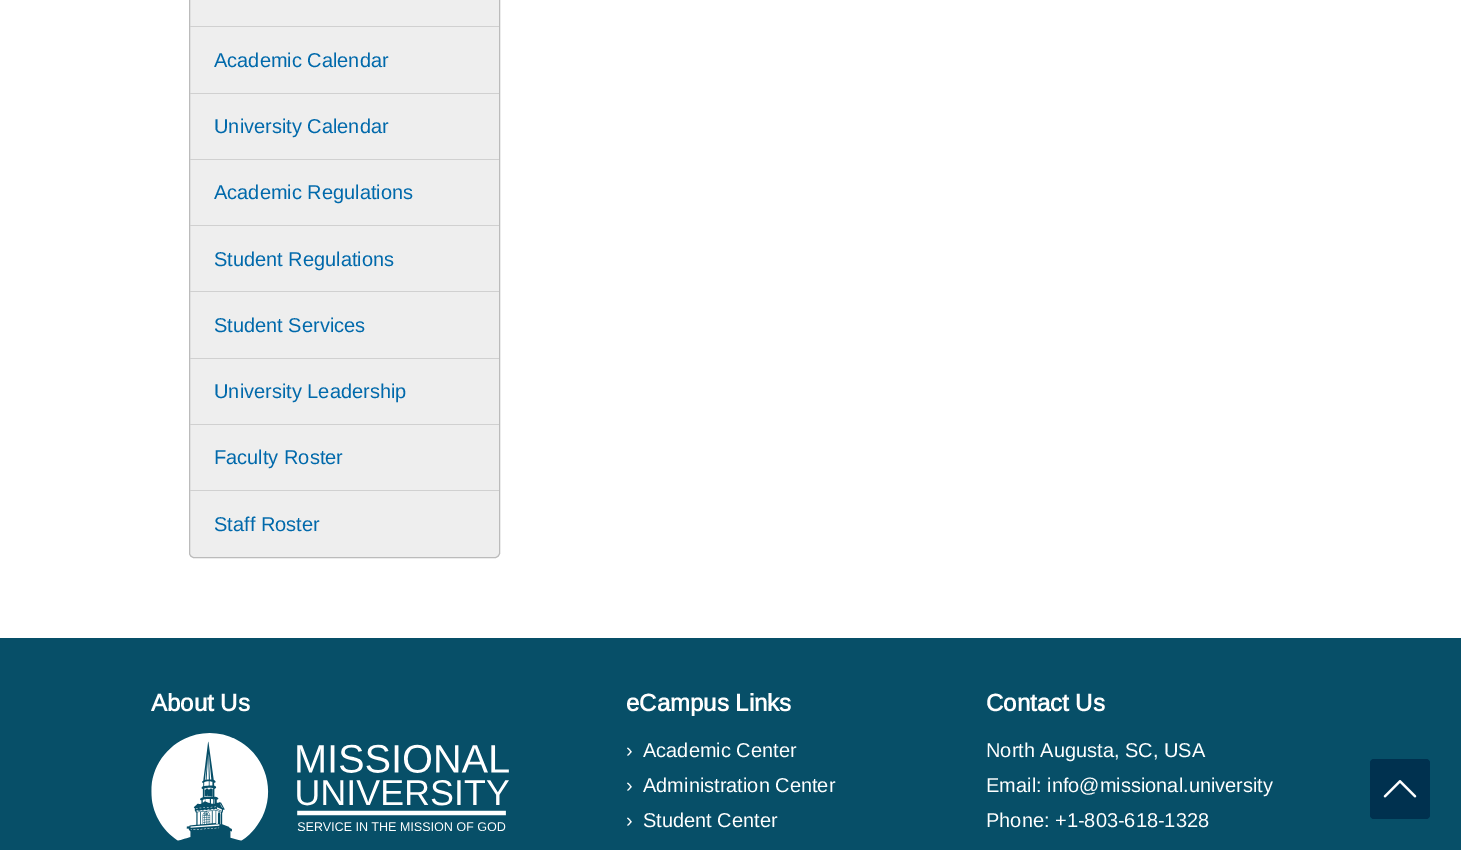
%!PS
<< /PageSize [1461 850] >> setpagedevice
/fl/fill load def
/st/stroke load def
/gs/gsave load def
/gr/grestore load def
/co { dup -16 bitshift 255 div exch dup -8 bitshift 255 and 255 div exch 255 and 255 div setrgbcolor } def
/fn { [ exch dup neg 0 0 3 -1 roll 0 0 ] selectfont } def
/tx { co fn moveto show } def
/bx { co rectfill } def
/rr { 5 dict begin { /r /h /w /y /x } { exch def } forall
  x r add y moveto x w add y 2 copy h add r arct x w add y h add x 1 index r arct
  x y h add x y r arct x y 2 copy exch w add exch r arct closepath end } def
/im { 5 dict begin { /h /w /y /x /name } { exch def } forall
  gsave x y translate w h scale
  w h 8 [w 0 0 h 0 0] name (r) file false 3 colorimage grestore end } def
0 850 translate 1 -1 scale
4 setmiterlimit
0 0 1461 850 16#074F68 bx
0 0 1461 638 16#FFFFFF bx
16#EEEEEE co
189.5 -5.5 310 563 4.5 rr gs fl gr
16#BBBBBB co
st
190 26 309 1 16#D0D0D0 bx
190 93 309 1 16#D0D0D0 bx
190 159 309 1 16#D0D0D0 bx
190 225 309 1 16#D0D0D0 bx
190 291 309 1 16#D0D0D0 bx
190 358 309 1 16#D0D0D0 bx
190 424 309 1 16#D0D0D0 bx
190 490 309 1 16#D0D0D0 bx
(media/1.raw) 151 733 358 108 im
16#00314F co
1370 759 60 60 4 rr fl
(media/2.raw) 1383 780 34 18 im
(Academic Calendar) 214 67 /LiberationSans-Regular 20 16#0069AB tx
(University Calendar) 214 133 /LiberationSans-Regular 20 16#0069AB tx
(Academic Regulations) 214 199 /LiberationSans-Regular 20 16#0069AB tx
(Student Regulations) 214 266 /LiberationSans-Regular 20 16#0069AB tx
(Student Services) 214 332 /LiberationSans-Regular 20 16#0069AB tx
(University Leadership) 214 398 /LiberationSans-Regular 20 16#0069AB tx
(Faculty Roster) 214 464 /LiberationSans-Regular 20 16#0069AB tx
(Staff Roster) 214 531 /LiberationSans-Regular 20 16#0069AB tx
(About Us) 151 711 /LiberationSans-Bold 24 16#FFFFFF tx
(eCampus Links) 626 711 /LiberationSans-Bold 24 16#FFFFFF tx
(›) 626 757 /LiberationSans-Regular 20 16#FFFFFF tx
(Academic Center) 643 757 /LiberationSans-Regular 20 16#FFFFFF tx
(›) 626 792 /LiberationSans-Regular 20 16#FFFFFF tx
(Administration Center) 643 792 /LiberationSans-Regular 20 16#FFFFFF tx
(›) 626 827 /LiberationSans-Regular 20 16#FFFFFF tx
(Student Center) 643 827 /LiberationSans-Regular 20 16#FFFFFF tx
(Contact Us) 986 711 /LiberationSans-Bold 24 16#FFFFFF tx
(North Augusta, SC, USA) 986 757 /LiberationSans-Regular 20 16#FFFFFF tx
(Email: info@missional.university) 986 792 /LiberationSans-Regular 20 16#FFFFFF tx
(Phone: +1-803-618-1328) 986 827 /LiberationSans-Regular 20 16#FFFFFF tx
showpage
